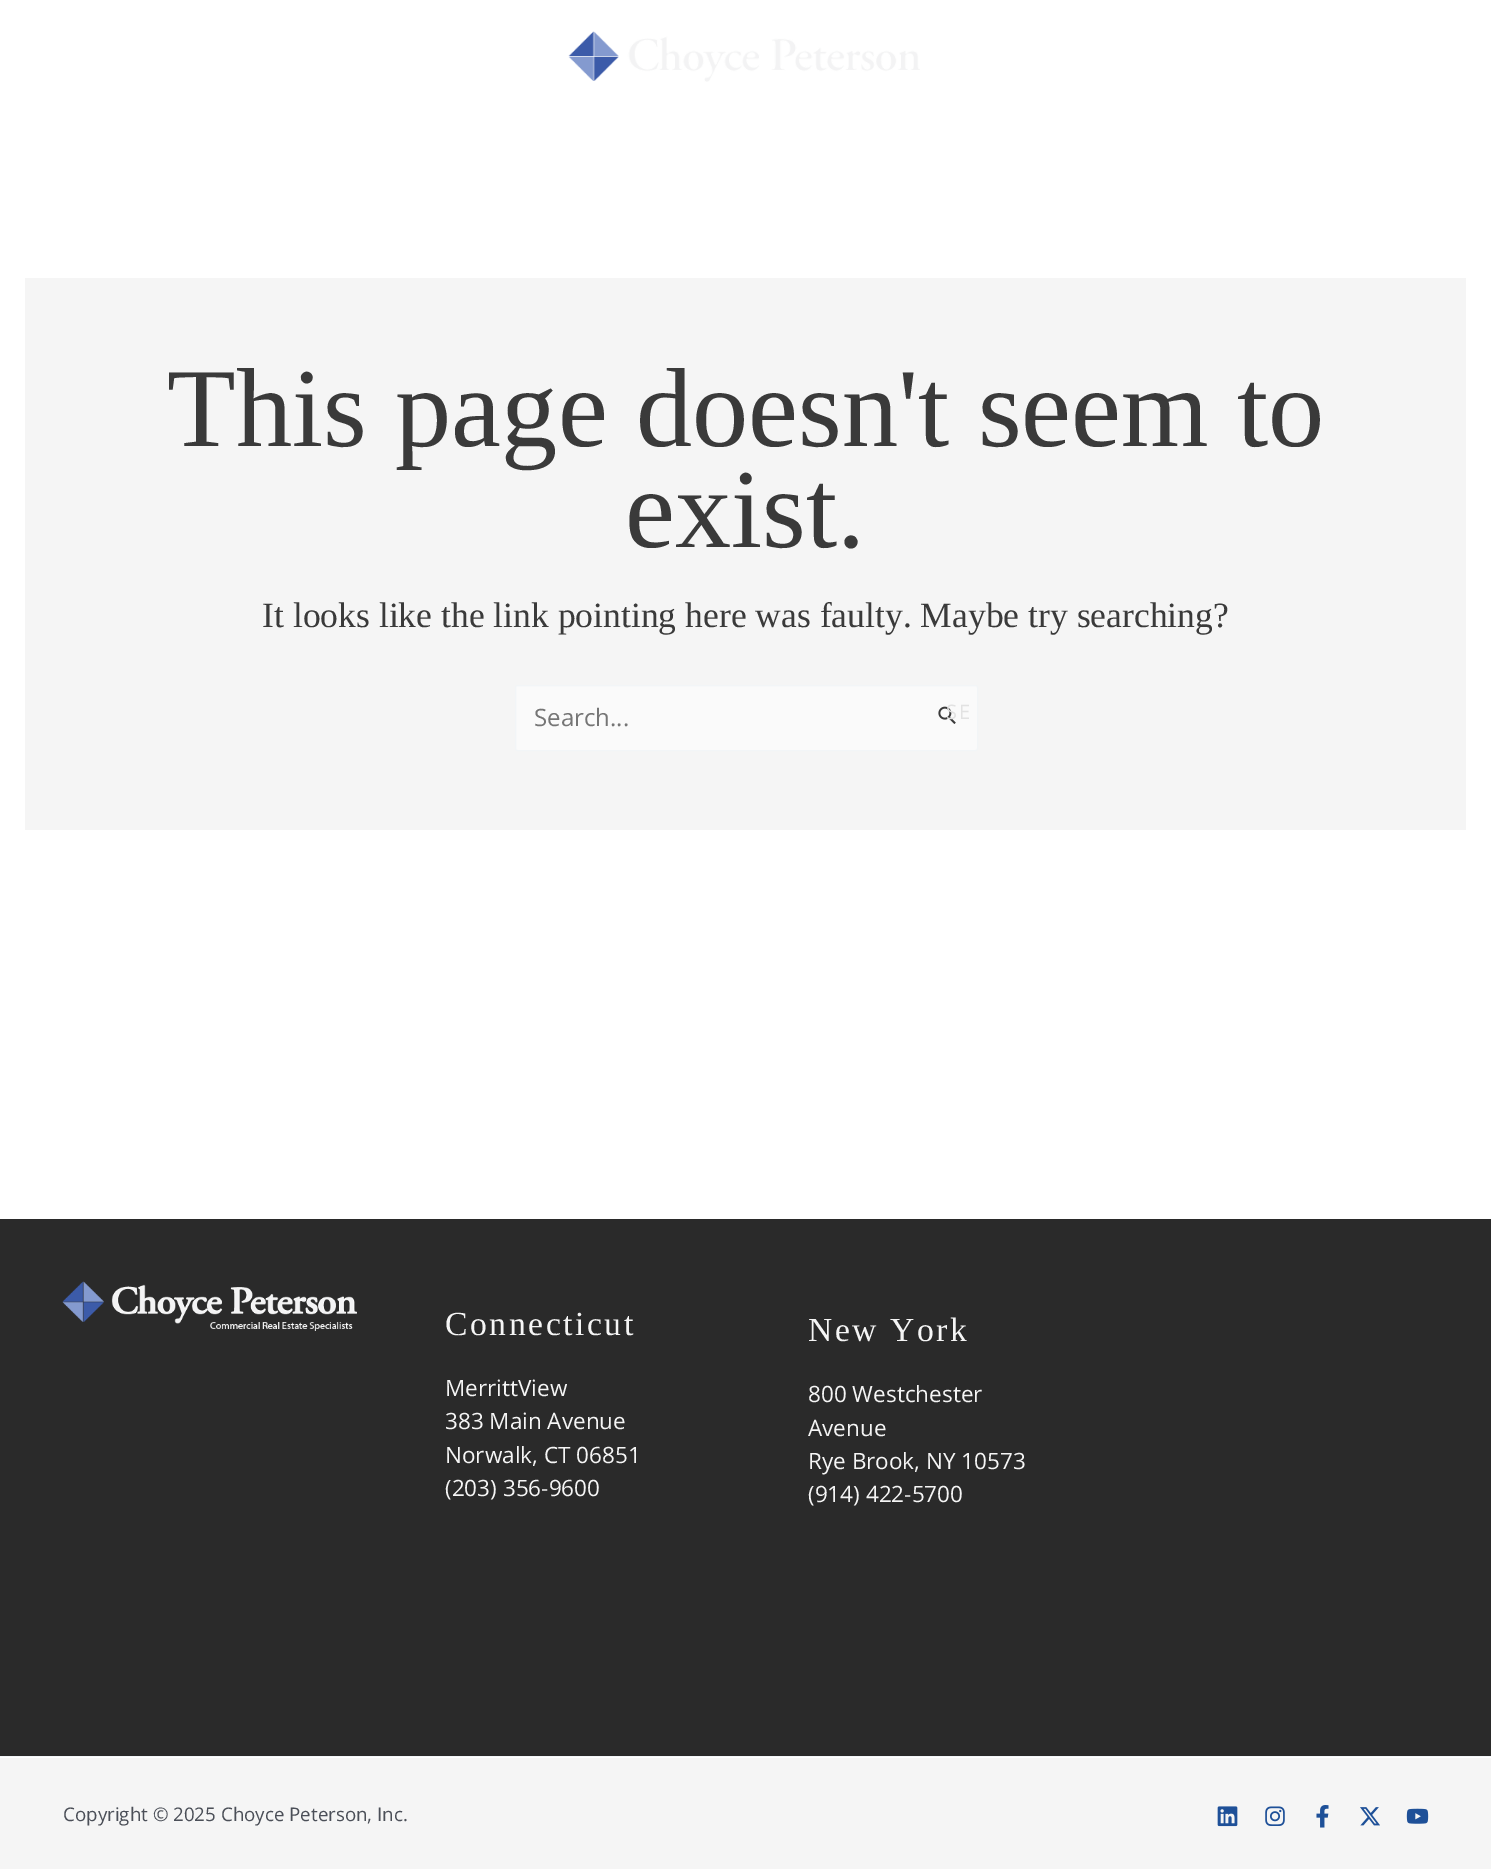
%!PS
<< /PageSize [1491 1869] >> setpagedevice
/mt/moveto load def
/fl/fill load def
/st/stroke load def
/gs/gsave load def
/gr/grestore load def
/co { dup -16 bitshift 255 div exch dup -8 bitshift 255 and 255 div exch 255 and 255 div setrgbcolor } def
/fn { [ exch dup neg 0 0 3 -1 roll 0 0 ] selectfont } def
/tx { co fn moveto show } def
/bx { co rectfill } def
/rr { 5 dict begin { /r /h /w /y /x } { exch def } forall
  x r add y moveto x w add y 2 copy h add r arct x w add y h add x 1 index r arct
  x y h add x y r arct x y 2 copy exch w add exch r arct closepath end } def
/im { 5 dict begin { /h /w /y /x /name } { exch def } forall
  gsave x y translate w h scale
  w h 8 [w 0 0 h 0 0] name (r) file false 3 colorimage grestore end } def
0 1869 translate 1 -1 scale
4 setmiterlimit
0 0 1491 1869 16#FFFFFF bx
(media/1.raw) 568 31 352 51 im
25 278 1441 552 16#F5F5F5 bx
16#FAFAFA co
515.5 685.5 462 65 2 rr gs fl gr
16#F2F5F7 co
st
(media/2.raw) 938 706 18 18 im
0 1219 1491 537 16#2A2A2A bx
(media/3.raw) 62 1281 295 50 im
0 1758 1491 111 16#F5F5F5 bx
0 1756 1491 1 16#F2F5F7 bx
(media/4.raw) 1217 1806 21 21 im
(media/5.raw) 1265 1806 20 20 im
(media/6.raw) 1316 1805 13 23 im
(media/7.raw) 1360 1807 20 19 im
(media/8.raw) 1406 1808 23 16 im
(This page doesn't seem to) 167 446 /LiberationSerif-Regular 112.5 16#3A3A3A tx
(exist.) 625 547 /LiberationSerif-Regular 112.5 16#3A3A3A tx
(It looks like the link pointing here was faulty. Maybe try searching?) 262 627 /LiberationSerif-Regular 35.6 16#3A3A3A tx
(Search...) 534 726 /OpenSans-Regular 24 16#757575 tx
/OpenSans-Regular 20 fn
16#E2E2E2 co
946 719 mt 2.5 0 (SE) ashow
/LiberationSerif-Regular 33.75 fn
16#F5F5F5 co
445 1335 mt 2.5 0 (Connecticut) ashow
(MerrittView) 445 1396 /OpenSans-Regular 22.5 16#F5F5F5 tx
(383 Main Avenue) 445 1429 /OpenSans-Regular 22.5 16#F5F5F5 tx
(Norwalk, CT 06851) 445 1463 /OpenSans-Regular 22.5 16#F5F5F5 tx
(\(203\) 356-9600) 445 1496 /OpenSans-Regular 22.5 16#F5F5F5 tx
/LiberationSerif-Regular 33.75 fn
808 1341 mt 2.5 0 (New York) ashow
(800 Westchester) 808 1402 /OpenSans-Regular 22.5 16#F5F5F5 tx
(Avenue) 808 1436 /OpenSans-Regular 22.5 16#F5F5F5 tx
(Rye Brook, NY 10573) 808 1469 /OpenSans-Regular 22.5 16#F5F5F5 tx
(\(914\) 422-5700) 808 1502 /OpenSans-Regular 22.5 16#F5F5F5 tx
(Copyright © 2025 Choyce Peterson, Inc.) 63 1821 /OpenSans-Regular 18.75 16#4B4F58 tx
showpage
